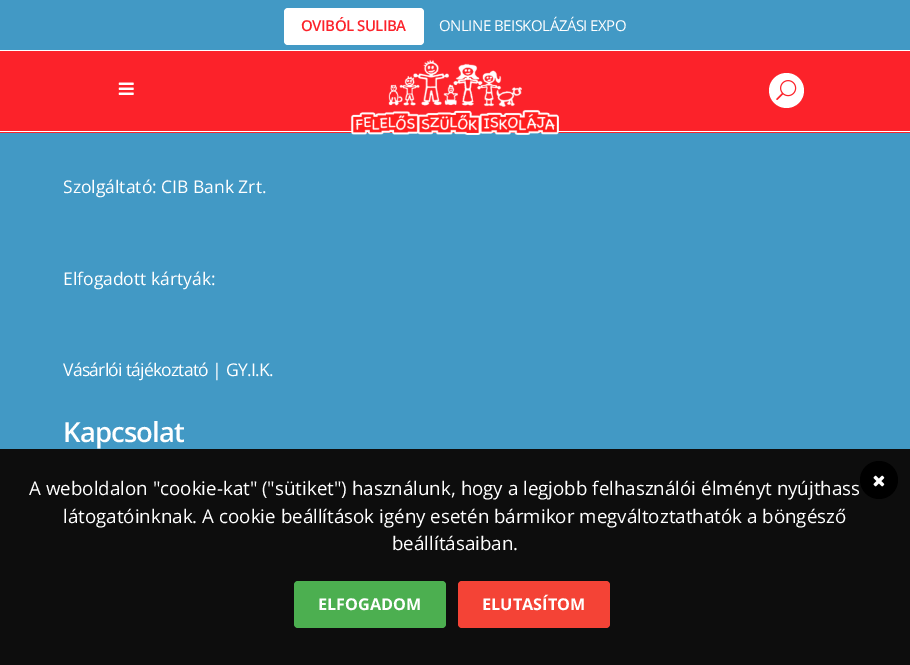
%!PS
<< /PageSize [910 665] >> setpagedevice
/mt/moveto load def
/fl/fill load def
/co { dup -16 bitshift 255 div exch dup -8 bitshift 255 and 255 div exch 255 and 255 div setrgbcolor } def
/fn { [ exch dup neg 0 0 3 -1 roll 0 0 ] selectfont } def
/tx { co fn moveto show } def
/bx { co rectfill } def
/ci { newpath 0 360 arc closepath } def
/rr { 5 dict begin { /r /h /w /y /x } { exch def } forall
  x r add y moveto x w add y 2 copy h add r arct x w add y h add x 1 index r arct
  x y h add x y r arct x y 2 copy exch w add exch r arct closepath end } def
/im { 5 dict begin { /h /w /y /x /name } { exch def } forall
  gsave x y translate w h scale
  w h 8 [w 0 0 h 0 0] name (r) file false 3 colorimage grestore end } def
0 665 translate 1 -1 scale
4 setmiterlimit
0 0 910 665 16#4299C5 bx
0 50 910 1 16#FFFFFF bx
284 8 140 37 4 rr fl
0 51 910 82 16#FC222A bx
0 131 910 1 16#FFFFFF bx
(media/1.raw) 118 82 16 13 im
(media/2.raw) 350 59 209 76 im
786.5 90.5 17.5 ci fl
(media/3.raw) 776 80 21 20 im
0 449 910 216 16#0D0D0D bx
16#000000 co
879 480 19 ci fl
(media/4.raw) 873 475 12 12 im
16#4CAF50 co
294 581 152 47 4 rr fl
16#F44336 co
458 581 152 47 4 rr fl
/OpenSans-SemiBold 15 fn
16#FC222A co
301 31 mt -.5 0 (OVIBÓL SULIBA) ashow
/OpenSans-Regular 15 fn
16#FFFFFF co
439 31 mt -.5 0 (ONLINE BEISKOLÁZÁSI EXPO) ashow
(Szolgáltató: CIB Bank Zrt.) 63 193 /OpenSans-Regular 17.5 16#FFFFFF tx
(Elfogadott kártyák:) 63 285 /OpenSans-Regular 17.5 16#FFFFFF tx
63 376 mt -.75 0 (Vásárlói tájékoztató) ashow
(|) 212 376 /OpenSans-Regular 17.5 16#FFFFFF tx
226 376 mt -.75 0 (GY.I.K.) ashow
/OpenSans-SemiBold 27.5 fn
63 442 mt -.9 0 (Kapcsolat) ashow
(A weboldalon "cookie-kat" \("sütiket"\) használunk, hogy a legjobb felhasználói élményt nyújthass) 29 495 /OpenSans-Regular 18.75 16#FFFFFF tx
(látogatóinknak. A cookie beállítások igény esetén bármikor megváltoztathatók a böngésző) 63 523 /OpenSans-Regular 18.75 16#FFFFFF tx
(beállításaiban.) 392 550 /OpenSans-Regular 18.75 16#FFFFFF tx
(ELFOGADOM) 318 610 /OpenSans-Bold 16.25 16#FFFFFF tx
(ELUTASÍTOM) 482 610 /OpenSans-Bold 16.25 16#FFFFFF tx
showpage
